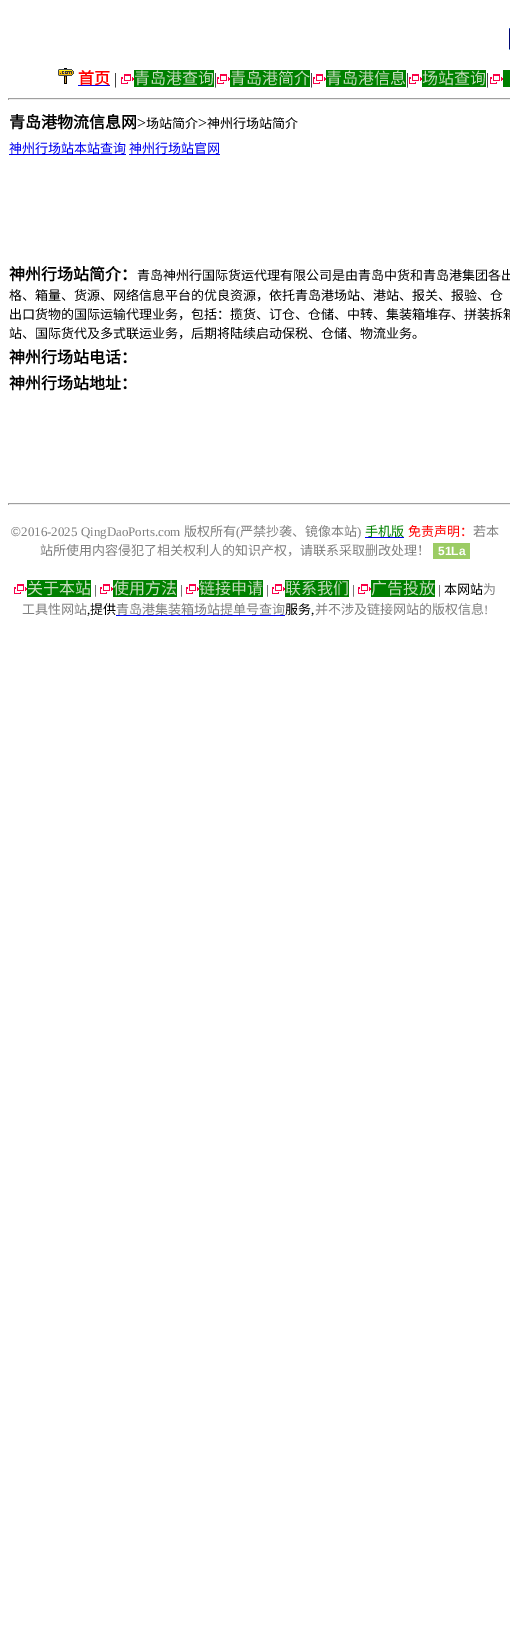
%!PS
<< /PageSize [510 1641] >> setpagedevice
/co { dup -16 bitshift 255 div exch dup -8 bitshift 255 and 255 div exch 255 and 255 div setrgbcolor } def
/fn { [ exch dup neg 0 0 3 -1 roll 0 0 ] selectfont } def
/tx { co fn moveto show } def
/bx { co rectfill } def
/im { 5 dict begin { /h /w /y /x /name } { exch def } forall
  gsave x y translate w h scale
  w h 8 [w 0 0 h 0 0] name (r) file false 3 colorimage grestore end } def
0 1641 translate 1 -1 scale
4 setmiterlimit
0 0 510 1641 16#FFFFFF bx
(media/1.raw) 509 26 1 24 im
(media/2.raw) 58 68 16 16 im
78 85 32 1 16#0000EE bx
(media/3.raw) 121 74 13 10 im
134 70 80 17 16#008000 bx
(media/3.raw) 217 74 13 10 im
230 70 80 17 16#008000 bx
(media/3.raw) 313 74 13 10 im
326 70 80 17 16#008000 bx
(media/3.raw) 409 74 13 10 im
422 70 64 17 16#008000 bx
(media/3.raw) 490 74 13 10 im
503 70 7 17 16#008000 bx
8 98 502 1 16#9F9F9F bx
8 99 502 1 16#EEEEEE bx
8 98 1 2 16#9F9F9F bx
9 154 117 1 16#0000EE bx
129 154 91 1 16#0000EE bx
8 503 502 1 16#9F9F9F bx
8 504 502 1 16#EEEEEE bx
8 503 1 2 16#9F9F9F bx
365 537 39 1 16#0000EE bx
433 543 37 16 16#9CCC65 bx
(media/3.raw) 14 584 13 10 im
27 580 64 17 16#008000 bx
(media/3.raw) 100 584 13 10 im
113 580 64 17 16#008000 bx
(media/3.raw) 186 584 13 10 im
199 580 64 17 16#008000 bx
(media/3.raw) 272 584 13 10 im
285 580 64 17 16#008000 bx
(media/3.raw) 358 584 13 10 im
371 580 64 17 16#008000 bx
116 615 169 1 16#0000EE bx
(首页) 78 84 /NotoSansCJKSC-Bold 16 16#FF0000 tx
(|) 114 84 /LiberationSerif-Regular 16 16#000000 tx
(青岛港查询) 134 84 /NotoSansCJKSC-Regular 16 16#C5DDBC tx
(|) 214 84 /LiberationSerif-Regular 16 16#000000 tx
(青岛港简介) 230 84 /NotoSansCJKSC-Regular 16 16#C5DDBC tx
(|) 310 84 /LiberationSerif-Regular 16 16#000000 tx
(青岛港信息) 326 84 /NotoSansCJKSC-Regular 16 16#C5DDBC tx
(|) 406 84 /LiberationSerif-Regular 16 16#000000 tx
(场站查询) 422 84 /NotoSansCJKSC-Regular 16 16#C5DDBC tx
(|) 486 84 /LiberationSerif-Regular 16 16#000000 tx
(青岛港物流信息网) 9 128 /NotoSansCJKSC-Bold 16 16#000000 tx
(>) 137 128 /LiberationSerif-Regular 16 16#000000 tx
(场站简介) 146 128 /NotoSansCJKSC-Regular 13 16#000000 tx
(>) 198 128 /LiberationSerif-Regular 16 16#000000 tx
(神州行场站简介) 207 128 /NotoSansCJKSC-Regular 13 16#000000 tx
(神州行场站本站查询) 9 153 /NotoSansCJKSC-Regular 13 16#0000EE tx
(神州行场站官网) 129 153 /NotoSansCJKSC-Regular 13 16#0000EE tx
(神州行场站简介：) 9 280 /NotoSansCJKSC-Bold 16 16#000000 tx
(青岛神州行国际货运代理有限公司是由青岛中货和青岛港集团各出) 137 280 /NotoSansCJKSC-Regular 13 16#000000 tx
(格、箱量、货源、网络信息平台的优良资源，依托青岛港场站、港站、报关、报验、仓) 9 300 /NotoSansCJKSC-Regular 13 16#000000 tx
(出口货物的国际运输代理业务，包括：揽货、订仓、仓储、中转、集装箱堆存、拼装拆箱) 9 319 /NotoSansCJKSC-Regular 13 16#000000 tx
(站、国际货代及多式联运业务，后期将陆续启动保税、仓储、物流业务。) 9 338 /NotoSansCJKSC-Regular 13 16#000000 tx
(神州行场站电话：) 9 363 /NotoSansCJKSC-Bold 16 16#000000 tx
(神州行场站地址：) 9 389 /NotoSansCJKSC-Bold 16 16#000000 tx
(手机版) 365 536 /NotoSansCJKSC-Regular 13 16#008000 tx
(免责声明：) 408 536 /NotoSansCJKSC-Regular 13 16#FF0000 tx
(若本) 473 536 /NotoSansCJKSC-Regular 13 16#808080 tx
(站所使用内容侵犯了相关权利人的知识产权，请联系采取删改处理！) 40 555 /NotoSansCJKSC-Regular 13 16#808080 tx
(51La) 438 555 /LiberationSans-Bold 12 16#FFFFFF tx
(©) 11 536 /LiberationSans-Regular 13 16#808080 tx
(2016-2025 QingDaoPorts.com) 21 536 /LiberationSerif-Regular 13 16#808080 tx
(版权所有) 184 536 /NotoSansCJKSC-Regular 13 16#808080 tx
(\() 236 536 /LiberationSerif-Regular 13 16#808080 tx
(严禁抄袭、镜像本站) 240 536 /NotoSansCJKSC-Regular 13 16#808080 tx
(\)) 357 536 /LiberationSerif-Regular 13 16#808080 tx
(关于本站) 27 594 /NotoSansCJKSC-Regular 16 16#C5DDBC tx
(|) 94 594 /LiberationSerif-Regular 13 16#000000 tx
(使用方法) 113 594 /NotoSansCJKSC-Regular 16 16#C5DDBC tx
(|) 180 594 /LiberationSerif-Regular 13 16#000000 tx
(链接申请) 199 594 /NotoSansCJKSC-Regular 16 16#C5DDBC tx
(|) 266 594 /LiberationSerif-Regular 13 16#000000 tx
(联系我们) 285 594 /NotoSansCJKSC-Regular 16 16#C5DDBC tx
(|) 352 594 /LiberationSerif-Regular 13 16#000000 tx
(广告投放) 371 594 /NotoSansCJKSC-Regular 16 16#C5DDBC tx
(|) 438 594 /LiberationSerif-Regular 13 16#000000 tx
(本网站) 444 594 /NotoSansCJKSC-Regular 13 16#000000 tx
(为) 483 594 /NotoSansCJKSC-Regular 13 16#808080 tx
(工具性网站) 22 614 /NotoSansCJKSC-Regular 13 16#808080 tx
(,) 87 614 /LiberationSerif-Regular 13 16#000000 tx
(提供) 90 614 /NotoSansCJKSC-Regular 13 16#000000 tx
(青岛港集装箱场站提单号查询) 116 614 /NotoSansCJKSC-Regular 13 16#808080 tx
(服务) 285 614 /NotoSansCJKSC-Regular 13 16#000000 tx
(,) 311 614 /LiberationSerif-Regular 13 16#000000 tx
(并不涉及链接网站的版权信息) 315 614 /NotoSansCJKSC-Regular 13 16#808080 tx
(!) 484 614 /LiberationSerif-Regular 13 16#808080 tx
showpage
